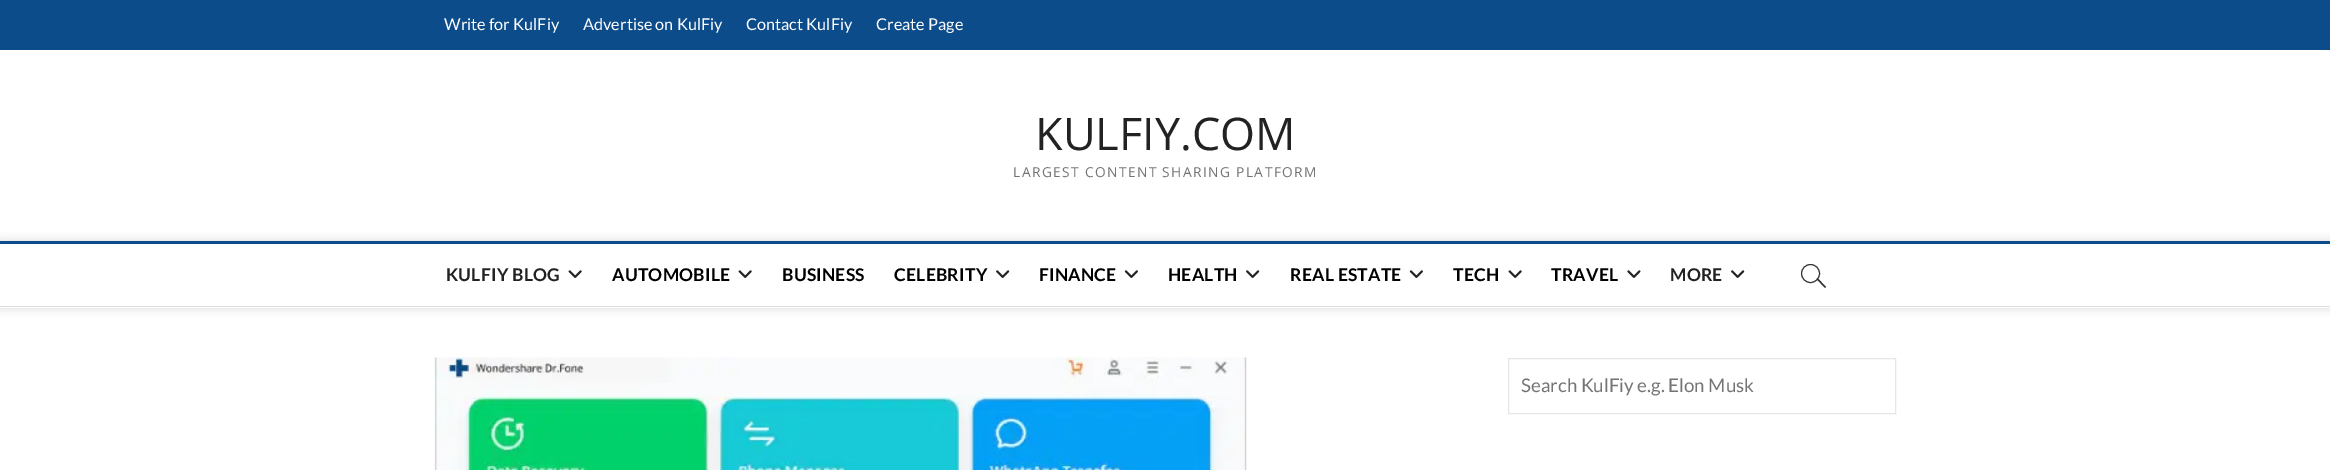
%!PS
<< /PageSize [2330 470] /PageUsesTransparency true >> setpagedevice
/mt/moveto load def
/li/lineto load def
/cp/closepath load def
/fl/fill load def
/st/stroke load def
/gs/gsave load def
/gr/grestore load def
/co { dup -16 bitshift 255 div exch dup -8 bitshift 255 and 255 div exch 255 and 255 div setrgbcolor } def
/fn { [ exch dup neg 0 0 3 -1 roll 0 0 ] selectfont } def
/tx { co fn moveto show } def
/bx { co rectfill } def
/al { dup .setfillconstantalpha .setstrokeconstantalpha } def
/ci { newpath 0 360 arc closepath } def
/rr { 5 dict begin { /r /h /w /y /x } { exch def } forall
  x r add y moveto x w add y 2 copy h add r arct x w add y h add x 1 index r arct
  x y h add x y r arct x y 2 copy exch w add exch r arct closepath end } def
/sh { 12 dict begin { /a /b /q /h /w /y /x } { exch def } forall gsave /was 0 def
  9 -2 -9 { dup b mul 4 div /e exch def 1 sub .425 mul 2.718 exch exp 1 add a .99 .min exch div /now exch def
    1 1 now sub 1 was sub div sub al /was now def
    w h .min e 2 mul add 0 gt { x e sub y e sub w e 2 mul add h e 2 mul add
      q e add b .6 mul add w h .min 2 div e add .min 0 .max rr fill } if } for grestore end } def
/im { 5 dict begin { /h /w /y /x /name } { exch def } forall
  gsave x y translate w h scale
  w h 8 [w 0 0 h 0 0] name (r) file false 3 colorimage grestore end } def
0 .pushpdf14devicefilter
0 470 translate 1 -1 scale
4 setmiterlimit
0 0 2330 470 16#FFFFFF bx
0 0 2330 50 16#0C4C8A bx
gs
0 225 mt 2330 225 li 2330 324 li 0 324 li cp 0 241 mt 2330 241 li 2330 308 li 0 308 li cp eoclip newpath
16#000000 co
0 241 2330 67 0 5 .15 sh
gr
0 241 2330 3 16#0C4C8A bx
0 306 2330 1 16#DDDDDD bx
(media/1.raw) 568 270 14 8 im
(media/1.raw) 738 270 14 8 im
(media/2.raw) 996 270 14 8 im
(media/3.raw) 1124 270 14 8 im
(media/2.raw) 1246 270 14 8 im
(media/3.raw) 1409 270 14 8 im
(media/1.raw) 1508 270 14 8 im
(media/4.raw) 1627 270 14 8 im
(media/2.raw) 1731 270 14 8 im
16#333333 co
1810.5 273.5 9 ci st
1816.5 279 mt 1817.5 278 li 1826 287 li 1825 288 li cp fl
(media/5.raw) 434 357 813 113 im
16#E6E6E6 co
1508.5 358.5 387 55 rectstroke
(Write for KulFiy) 444 30 /Lato-Regular 16.25 16#FFFFFF tx
(Advertise on KulFiy) 583 30 /Lato-Regular 16.25 16#FFFFFF tx
(Contact KulFiy) 746 30 /Lato-Regular 16.25 16#FFFFFF tx
(Create Page) 876 30 /Lato-Regular 16.25 16#FFFFFF tx
(KULFIY.COM) 1035 150 /OpenSans-Regular 45 16#222222 tx
/OpenSans-Regular 13.75 fn
16#747474 co
1013 177 mt 1.4 0 (LARGEST CONTENT SHARING PLATFORM) ashow
/Lato-Bold 17.5 fn
16#222222 co
446 281 mt .25 0 (KULFIY BLOG) ashow
16#000000 co
612 281 mt .25 0 (AUTOMOBILE) ashow
782 281 mt .25 0 (BUSINESS) ashow
894 281 mt .25 0 (CELEBRITY) ashow
1039 281 mt .25 0 (FINANCE) ashow
1168 281 mt .25 0 (HEALTH) ashow
1290 281 mt .25 0 (REAL ESTATE) ashow
1453 281 mt .25 0 (TECH) ashow
1551 281 mt .25 0 (TRAVEL) ashow
16#222222 co
1670 281 mt .25 0 (MORE) ashow
(Search KulFiy e.g. Elon Musk) 1521 392 /Lato-Regular 18.75 16#747474 tx
.poppdf14devicefilter showpage
